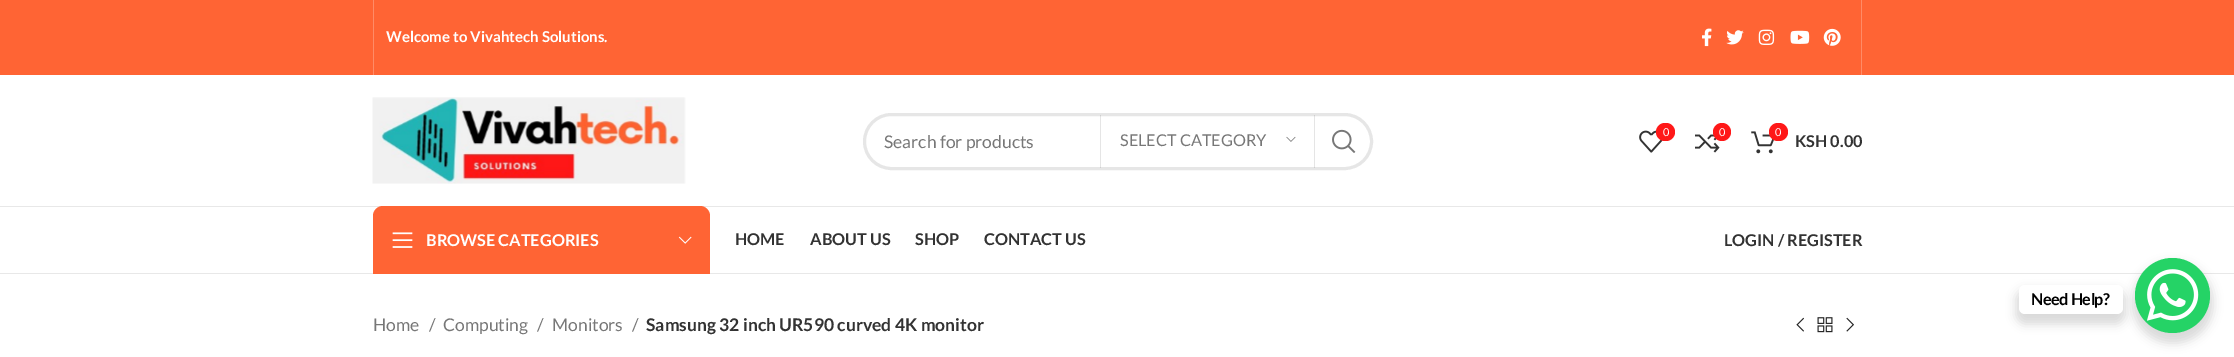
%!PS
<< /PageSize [2234 357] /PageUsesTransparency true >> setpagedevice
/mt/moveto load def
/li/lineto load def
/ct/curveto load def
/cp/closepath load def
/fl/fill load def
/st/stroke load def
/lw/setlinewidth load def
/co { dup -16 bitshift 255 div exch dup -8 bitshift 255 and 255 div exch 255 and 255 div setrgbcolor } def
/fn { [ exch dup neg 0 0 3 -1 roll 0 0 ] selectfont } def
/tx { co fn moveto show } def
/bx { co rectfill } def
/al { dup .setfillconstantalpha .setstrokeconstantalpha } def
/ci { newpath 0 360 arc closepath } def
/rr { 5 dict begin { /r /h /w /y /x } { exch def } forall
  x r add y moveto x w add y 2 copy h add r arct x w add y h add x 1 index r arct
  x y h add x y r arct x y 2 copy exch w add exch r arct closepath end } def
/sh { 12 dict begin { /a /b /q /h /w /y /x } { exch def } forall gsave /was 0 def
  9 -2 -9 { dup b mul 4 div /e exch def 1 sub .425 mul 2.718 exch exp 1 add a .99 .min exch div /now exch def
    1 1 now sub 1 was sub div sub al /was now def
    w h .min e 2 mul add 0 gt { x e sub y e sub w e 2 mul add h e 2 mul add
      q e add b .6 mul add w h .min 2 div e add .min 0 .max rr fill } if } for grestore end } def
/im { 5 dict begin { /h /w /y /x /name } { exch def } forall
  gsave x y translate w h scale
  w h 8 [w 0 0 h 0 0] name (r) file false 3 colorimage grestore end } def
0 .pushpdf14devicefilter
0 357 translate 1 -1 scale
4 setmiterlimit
0 0 2234 357 16#FFFFFF bx
0 0 2234 75 16#FF6434 bx
373 0 1 75 16#FF8B67 bx
(media/1.raw) 1702 28 10 19 im
(media/2.raw) 1726 30 18 15 im
(media/3.raw) 1758 29 17 16 im
(media/4.raw) 1790 30 20 14 im
(media/5.raw) 1823 28 18 18 im
1861 0 1 75 16#FF8B67 bx
0 206 2234 1 16#E8E8E8 bx
(media/6.raw) 372 97 314 87 im
16#E6E6E6 co
3 lw
864.5 114.5 507 54 27 rr st
0.1 al
1314 115 1 53 16#000000 bx
1100 115 1 53 16#000000 bx
1 al
(media/7.raw) 1286 136 10 6 im
(media/8.raw) 1332 129 24 24 im
(media/9.raw) 1639 130 24 23 im
16#FF1818 co
1656 123 19 18 9 rr fl
(media/10.raw) 1695 131 25 22 im
1722 132 9 ci fl
(media/11.raw) 1751 131 23 23 im
1769 123 19 18 9 rr fl
0 273 2234 1 16#E8E8E8 bx
16#FF6434 co
383 206 mt 700 206 li 705.5 206 710 210.5 710 216 ct 710 274 li 373 274 li 373 216 li 373 210.5 377.5 206 383 206 ct cp fl
(media/12.raw) 392 232 21 16 im
(media/13.raw) 678 236 14 8 im
16#000000 co
2133 263 80 80 40 5 .15 sh
16#25D366 co
2172.5 295.5 37.5 ci fl
16#000000 co
2016 290 109 34 9 5 .15 sh
16#FFFFFF co
2019 285 104 29 6 rr fl
(media/14.raw) 2147 269 52 52 im
(media/15.raw) 1796 317 8 15 im
(media/16.raw) 1817 317 16 16 im
(media/17.raw) 1846 317 8 15 im
(Welcome to Vivahtech Solutions.) 386 42 /Lato-Bold 15 16#FFFFFF tx
(Search for products) 884 148 /Lato-Regular 17.5 16#777777 tx
(SELECT CATEGORY) 1120 146 /Lato-Regular 16.25 16#777777 tx
(0) 1663 136 /Lato-Regular 11 16#FFFFFF tx
(0) 1719 136 /Lato-Regular 11 16#FFFFFF tx
(0) 1775 136 /Lato-Regular 11 16#FFFFFF tx
(KSH 0.00) 1795 147 /Lato-Bold 16.25 16#333333 tx
(BROWSE CATEGORIES) 426 246 /Lato-Bold 16.25 16#FFFFFF tx
(HOME) 735 245 /Lato-Bold 16.25 16#333333 tx
(ABOUT US) 810 245 /Lato-Bold 16.25 16#333333 tx
(SHOP) 915 245 /Lato-Bold 16.25 16#333333 tx
(CONTACT US) 984 245 /Lato-Bold 16.25 16#333333 tx
(LOGIN / REGISTER) 1724 246 /Lato-Bold 16.25 16#333333 tx
16#000000 co
2031 305 mt -.5 0 (Need Help?) ashow
(Home) 373 331 /Lato-Regular 17.5 16#777777 tx
(/) 429 331 /Lato-Regular 17.5 16#777777 tx
(Computing) 443 331 /Lato-Regular 17.5 16#777777 tx
(/) 537 331 /Lato-Regular 17.5 16#777777 tx
(Monitors) 552 331 /Lato-Regular 17.5 16#777777 tx
(/) 632 331 /Lato-Regular 17.5 16#777777 tx
(Samsung 32 inch UR590 curved 4K monitor) 646 331 /Lato-Bold 17.5 16#333333 tx
.poppdf14devicefilter showpage
